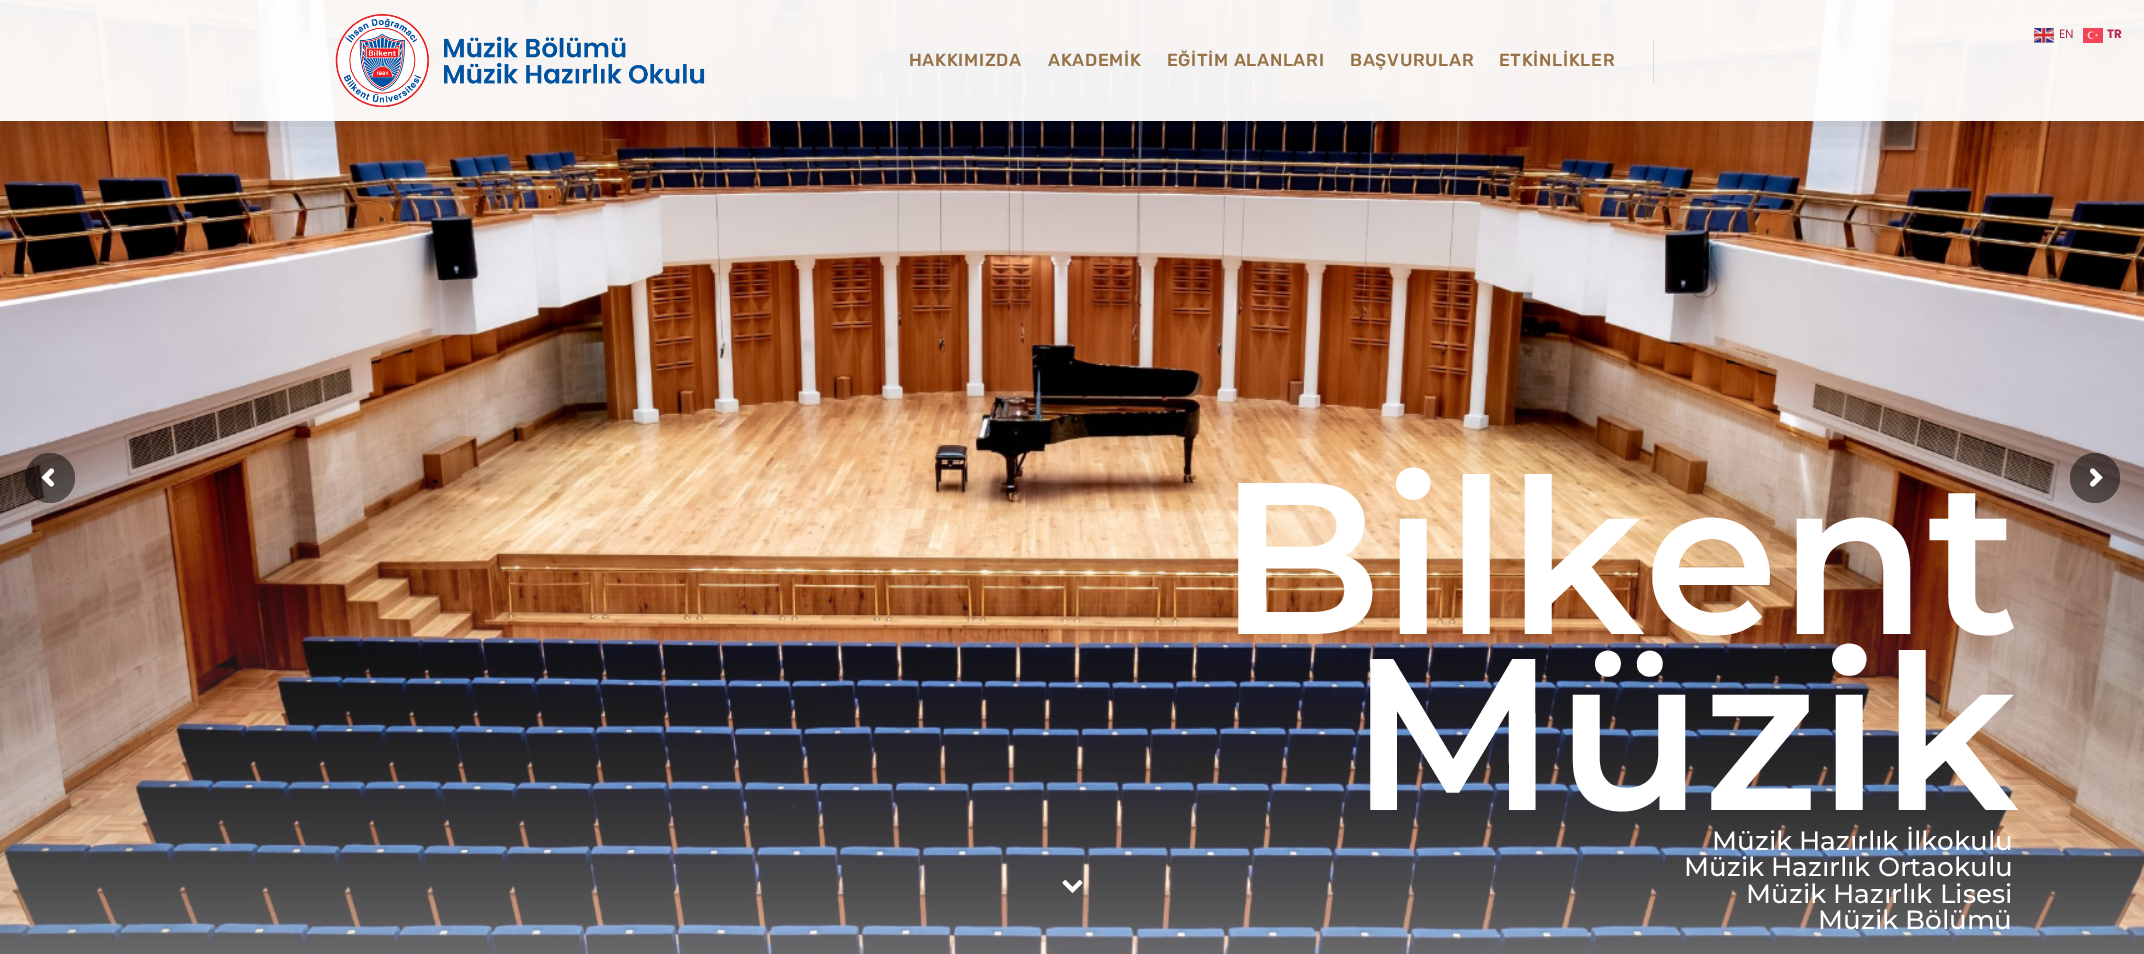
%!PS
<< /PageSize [2144 954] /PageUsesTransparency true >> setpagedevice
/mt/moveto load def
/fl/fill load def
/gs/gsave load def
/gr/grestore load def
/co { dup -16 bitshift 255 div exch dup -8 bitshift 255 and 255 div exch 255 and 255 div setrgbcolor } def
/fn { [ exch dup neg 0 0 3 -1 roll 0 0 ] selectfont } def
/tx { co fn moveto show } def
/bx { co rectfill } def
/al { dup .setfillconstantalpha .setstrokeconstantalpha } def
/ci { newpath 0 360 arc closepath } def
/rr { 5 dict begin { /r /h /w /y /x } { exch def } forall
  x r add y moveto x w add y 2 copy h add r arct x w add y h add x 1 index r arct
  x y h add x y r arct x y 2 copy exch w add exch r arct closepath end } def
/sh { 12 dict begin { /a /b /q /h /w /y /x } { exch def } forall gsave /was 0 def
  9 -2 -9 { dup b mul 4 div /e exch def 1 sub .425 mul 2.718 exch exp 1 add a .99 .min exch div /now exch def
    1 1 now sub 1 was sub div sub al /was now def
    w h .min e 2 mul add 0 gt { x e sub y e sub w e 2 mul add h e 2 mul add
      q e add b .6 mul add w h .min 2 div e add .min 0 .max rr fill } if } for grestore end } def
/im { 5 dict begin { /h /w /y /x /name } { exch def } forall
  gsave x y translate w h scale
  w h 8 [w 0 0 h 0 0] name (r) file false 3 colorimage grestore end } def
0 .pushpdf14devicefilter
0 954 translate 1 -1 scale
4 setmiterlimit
0 0 2144 954 16#FFFFFF bx
(media/3.raw) 1615 447 529 398 im
(media/5.raw) 0 0 2144 954 im
gs
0 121 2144 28 rectclip
16#020620 co
0 0 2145 121 0 22 .2 sh
gr
0.95 al
0 0 2144 121 16#FFFFFF bx
1 al
(media/1.raw) 2034 28 20 15 im
(media/2.raw) 2083 28 20 15 im
(media/4.raw) 335 14 370 93 im
0.1 al
1653 39 1 44 16#020620 bx
0.5 al
16#000000 co
50 478 25 ci fl
1 al
(media/6.raw) 41 468 13 19 im
(media/7.raw) 1062 880 21 13 im
0.5 al
2095 478 25 ci fl
1 al
(media/8.raw) 2090 468 13 19 im
(EN) 2059 38 /Poppins-Regular 12 16#BA274A tx
(TR) 2107 38 /Poppins-Bold 12 16#BA274A tx
/Rubik-Medium 17.5 fn
16#977246 co
909 66 mt .6 0 (HAKKIMIZDA) ashow
1048 66 mt .6 0 (AKADEMİK) ashow
1167 66 mt .6 0 (EĞİTİM ALANLARI) ashow
1350 66 mt .6 0 (BAŞVURULAR) ashow
1499 66 mt .6 0 (ETKİNLİKLER) ashow
(Bilkent) 1218 634 /Montserrat-SemiBold 216 16#FFFFFF tx
(Müzik) 1350 810 /Montserrat-SemiBold 216 16#FFFFFF tx
(Müzik Hazırlık İlkokulu) 1712 850 /Montserrat-Medium 26.25 16#FFFFFF tx
(Müzik Hazırlık Ortaokulu) 1684 876 /Montserrat-Medium 26.25 16#FFFFFF tx
(Müzik Hazırlık Lisesi) 1746 903 /Montserrat-Medium 26.25 16#FFFFFF tx
(Müzik Bölümü) 1818 929 /Montserrat-Medium 26.25 16#FFFFFF tx
.poppdf14devicefilter showpage
